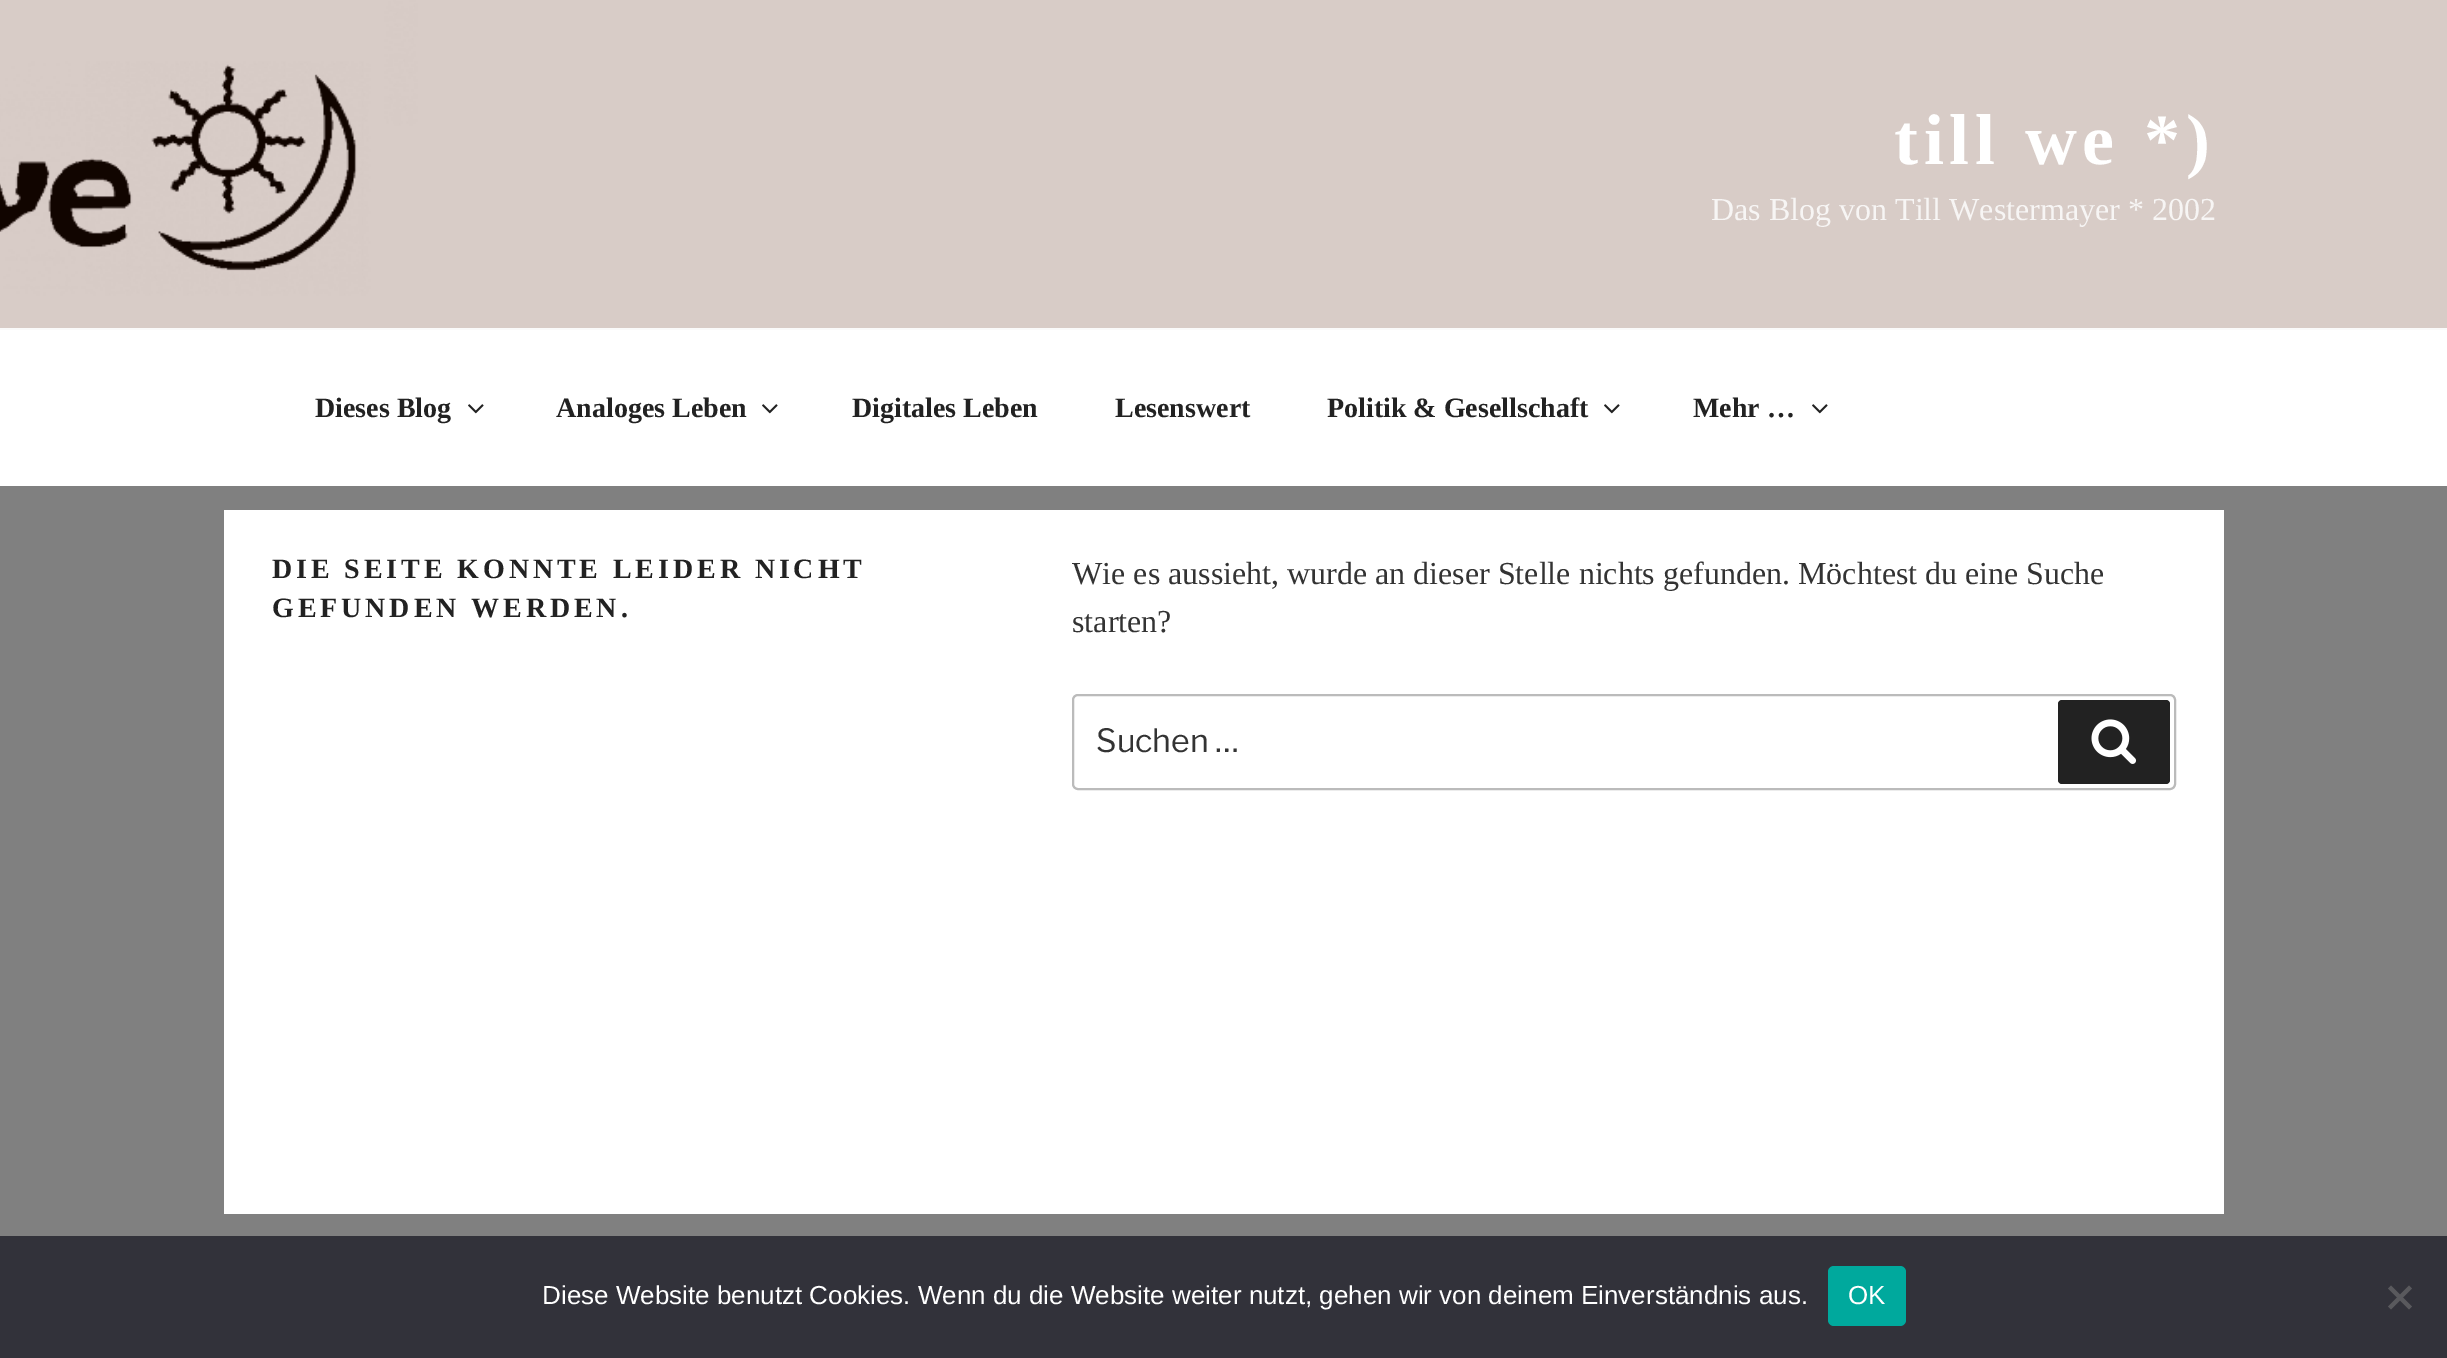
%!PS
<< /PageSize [2447 1358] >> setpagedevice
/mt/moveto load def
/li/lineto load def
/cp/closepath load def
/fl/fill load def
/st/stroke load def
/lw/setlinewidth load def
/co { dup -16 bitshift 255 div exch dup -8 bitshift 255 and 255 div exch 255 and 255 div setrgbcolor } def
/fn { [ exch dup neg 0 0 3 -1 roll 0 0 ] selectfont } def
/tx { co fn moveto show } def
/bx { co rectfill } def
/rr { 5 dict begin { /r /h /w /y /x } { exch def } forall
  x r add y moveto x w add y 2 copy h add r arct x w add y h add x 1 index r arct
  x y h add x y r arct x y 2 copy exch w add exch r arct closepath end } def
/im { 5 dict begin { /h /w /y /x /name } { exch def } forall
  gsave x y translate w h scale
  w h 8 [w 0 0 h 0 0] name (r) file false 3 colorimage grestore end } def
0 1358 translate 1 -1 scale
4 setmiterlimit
0 0 2447 1358 16#FAFAFA bx
(media/1.raw) 0 0 2447 328 im
0 330 2447 156 16#FFFFFF bx
(media/2.raw) 468 404 16 10 im
(media/2.raw) 762 404 16 10 im
(media/2.raw) 1604 404 16 10 im
(media/2.raw) 1812 404 16 10 im
0 486 2447 750 16#808080 bx
224 510 2000 704 16#FFFFFF bx
16#BBBBBB co
2 lw
1073 695 1102 94 5 rr st
16#222222 co
2058 700 112 84 4 rr fl
(media/3.raw) 2091 719 46 45 im
0 1236 2447 122 16#32323A bx
16#00A99D co
1828 1266 78 60 6 rr fl
16#59595D co
2409 1285.5 mt 2412 1288.5 li 2391 1309.5 li 2388 1306.5 li cp fl
2388 1288.5 mt 2391 1285.5 li 2412 1306.5 li 2409 1309.5 li cp fl
/LiberationSerif-Bold 72 fn
16#FFFFFF co
1894 164 mt 5.75 0 (till we *\)) ashow
(Das Blog von Till Westermayer * 2002) 1711 220 /LiberationSerif-Regular 32 16#F7F5F4 tx
(Dieses Blog) 315 417 /LiberationSerif-Bold 28 16#222222 tx
(Analoges Leben) 556 417 /LiberationSerif-Bold 28 16#222222 tx
(Digitales Leben) 852 417 /LiberationSerif-Bold 28 16#222222 tx
(Lesenswert) 1115 417 /LiberationSerif-Bold 28 16#222222 tx
(Politik & Gesellschaft) 1327 417 /LiberationSerif-Bold 28 16#222222 tx
(Mehr …) 1693 417 /LiberationSerif-Bold 28 16#222222 tx
272 578 mt 3.9 0 (DIE SEITE KONNTE LEIDER NICHT) ashow
272 617 mt 3.9 0 (GEFUNDEN WERDEN.) ashow
(Wie es aussieht, wurde an dieser Stelle nichts gefunden. Möchtest du eine Suche) 1072 584 /LiberationSerif-Regular 32 16#333333 tx
(starten?) 1072 632 /LiberationSerif-Regular 32 16#333333 tx
(Suchen …) 1096 752 /LibreFranklin-Thin 32 16#333333 tx
(Diese Website benutzt Cookies. Wenn du die Website weiter nutzt, gehen wir von deinem Einverständnis aus.) 542 1304 /LiberationSans-Regular 26 16#FFFFFF tx
(OK) 1848 1304 /LiberationSans-Regular 26 16#FFFFFF tx
showpage
